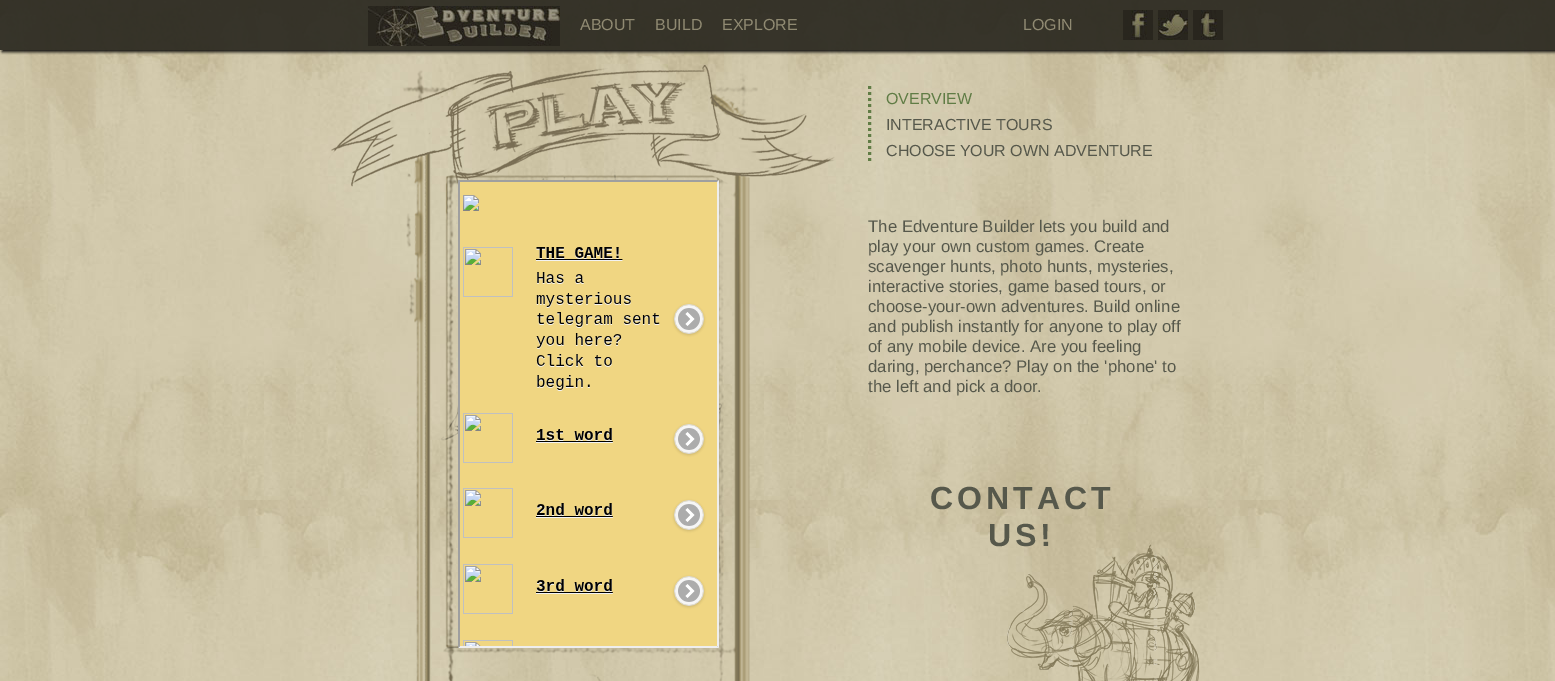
%!PS
<< /PageSize [1555 681] /PageUsesTransparency true >> setpagedevice
/mt/moveto load def
/li/lineto load def
/cp/closepath load def
/fl/fill load def
/st/stroke load def
/gs/gsave load def
/gr/grestore load def
/lw/setlinewidth load def
/co { dup -16 bitshift 255 div exch dup -8 bitshift 255 and 255 div exch 255 and 255 div setrgbcolor } def
/fn { [ exch dup neg 0 0 3 -1 roll 0 0 ] selectfont } def
/tx { co fn moveto show } def
/bx { co rectfill } def
/al { dup .setfillconstantalpha .setstrokeconstantalpha } def
/rr { 5 dict begin { /r /h /w /y /x } { exch def } forall
  x r add y moveto x w add y 2 copy h add r arct x w add y h add x 1 index r arct
  x y h add x y r arct x y 2 copy exch w add exch r arct closepath end } def
/sh { 12 dict begin { /a /b /q /h /w /y /x } { exch def } forall gsave /was 0 def
  9 -2 -9 { dup b mul 4 div /e exch def 1 sub .425 mul 2.718 exch exp 1 add a .99 .min exch div /now exch def
    1 1 now sub 1 was sub div sub al /was now def
    w h .min e 2 mul add 0 gt { x e sub y e sub w e 2 mul add h e 2 mul add
      q e add b .6 mul add w h .min 2 div e add .min 0 .max rr fill } if } for grestore end } def
/im { 5 dict begin { /h /w /y /x /name } { exch def } forall
  gsave x y translate w h scale
  w h 8 [w 0 0 h 0 0] name (r) file false 3 colorimage grestore end } def
0 .pushpdf14devicefilter
0 681 translate 1 -1 scale
4 setmiterlimit
0 0 1555 681 16#FFFFFF bx
(media/1.raw) 0 0 1555 681 im
gs
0 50 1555 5 rectclip
16#000000 co
2 2 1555 50 0 1.5 .9 sh
gr
0.9 al
0 0 1555 50 16#26241C bx
1 al
(media/2.raw) 368 6 192 40 im
(media/3.raw) 1123 10 30 30 im
(media/4.raw) 1158 10 30 30 im
(media/5.raw) 1193 10 30 30 im
(media/6.raw) 329 65 506 616 im
16#607C45 co
3 lw
[3 3] 0 setdash
869.5 86 mt 869.5 164 li st
16#9F9F9F co
458 180 mt 719 180 li 717 182 li 460 182 li cp fl
16#EEEEEE co
719 180 mt 719 648 li 717 646 li 717 182 li cp fl
719 648 mt 458 648 li 460 646 li 717 646 li cp fl
16#9F9F9F co
458 648 mt 458 180 li 460 182 li 460 646 li cp fl
(media/7.raw) 460 182 257 464 im
(ABOUT) 580 30 /LiberationSans-Regular 16 16#908A72 tx
(BUILD) 655 30 /LiberationSans-Regular 16 16#908A72 tx
(EXPLORE) 722 30 /LiberationSans-Regular 16 16#908A72 tx
(LOGIN) 1023 30 /LiberationSans-Regular 16 16#908A72 tx
(OVERVIEW) 886 104 /LiberationSans-Regular 16 16#607C45 tx
(INTERACTIVE TOURS) 886 130 /LiberationSans-Regular 16 16#56584B tx
(CHOOSE YOUR OWN ADVENTURE) 886 156 /LiberationSans-Regular 16 16#56584B tx
(The Edventure Builder lets you build and) 868 232 /LiberationSans-Regular 16.75 16#56584B tx
(play your own custom games. Create) 868 252 /LiberationSans-Regular 16.75 16#56584B tx
(scavenger hunts, photo hunts, mysteries,) 868 272 /LiberationSans-Regular 16.75 16#56584B tx
(interactive stories, game based tours, or) 868 292 /LiberationSans-Regular 16.75 16#56584B tx
(choose-your-own adventures. Build online) 868 312 /LiberationSans-Regular 16.75 16#56584B tx
(and publish instantly for anyone to play off) 868 332 /LiberationSans-Regular 16.75 16#56584B tx
(of any mobile device. Are you feeling) 868 352 /LiberationSans-Regular 16.75 16#56584B tx
(daring, perchance? Play on the 'phone' to) 868 372 /LiberationSans-Regular 16.75 16#56584B tx
(the left and pick a door.) 868 392 /LiberationSans-Regular 16.75 16#56584B tx
/LiberationSans-Bold 32 fn
930 509 mt 4 0 (CONTACT) ashow
988 546 mt 4 0 (US!) ashow
(media/8.raw) 1007 540 193 141 im
.poppdf14devicefilter showpage
